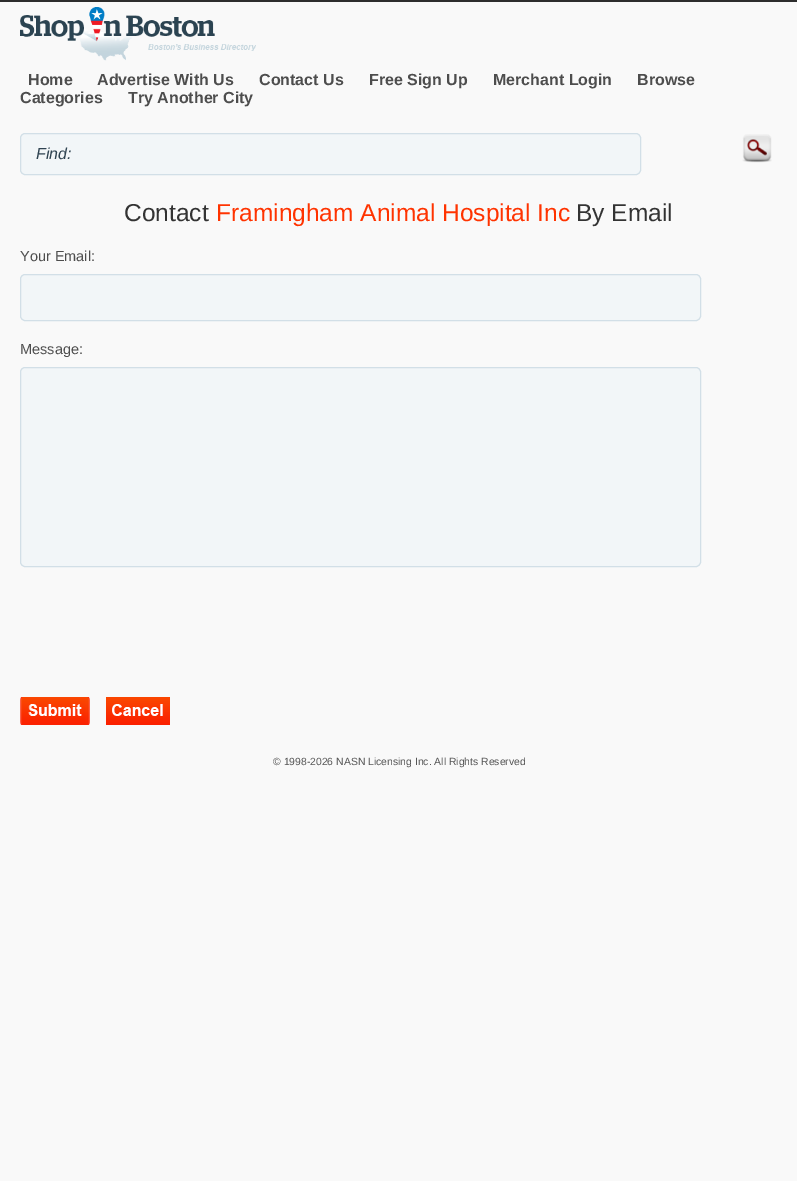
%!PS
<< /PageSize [797 1181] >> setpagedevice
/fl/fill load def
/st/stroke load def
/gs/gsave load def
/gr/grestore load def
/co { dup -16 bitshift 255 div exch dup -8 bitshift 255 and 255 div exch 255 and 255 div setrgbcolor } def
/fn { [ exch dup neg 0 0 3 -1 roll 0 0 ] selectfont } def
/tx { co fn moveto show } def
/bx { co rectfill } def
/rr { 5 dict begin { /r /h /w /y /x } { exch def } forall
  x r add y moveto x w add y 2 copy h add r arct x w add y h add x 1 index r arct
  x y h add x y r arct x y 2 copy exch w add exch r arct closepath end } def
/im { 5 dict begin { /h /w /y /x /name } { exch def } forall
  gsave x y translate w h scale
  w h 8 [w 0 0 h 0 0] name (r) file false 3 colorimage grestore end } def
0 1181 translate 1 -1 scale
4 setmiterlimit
0 0 797 1181 16#F9F9F9 bx
0 0 797 2 16#2D2D2D bx
(media/1.raw) 20 7 236 54 im
16#F2F6F8 co
20.5 133.5 620 41 4.5 rr gs fl gr
16#D2DFE7 co
st
(media/2.raw) 742 134 30 29 im
16#F2F6F8 co
20.5 274.5 680 46 4.5 rr gs fl gr
16#D2DFE7 co
st
16#F2F6F8 co
20.5 367.5 680 199 4.5 rr gs fl gr
16#D2DFE7 co
st
(media/3.raw) 20 697 70 28 im
(media/4.raw) 106 697 64 28 im
(Home) 28 85 /LiberationSans-Bold 16 16#4D4D4D tx
(Advertise With Us) 97 85 /LiberationSans-Bold 16 16#4D4D4D tx
(Contact Us) 259 85 /LiberationSans-Bold 16 16#4D4D4D tx
(Free Sign Up) 369 85 /LiberationSans-Bold 16 16#4D4D4D tx
(Merchant Login) 493 85 /LiberationSans-Bold 16 16#4D4D4D tx
(Browse) 637 85 /LiberationSans-Bold 16 16#4D4D4D tx
(Categories) 20 103 /LiberationSans-Bold 16 16#4D4D4D tx
(Try Another City) 128 103 /LiberationSans-Bold 16 16#4D4D4D tx
(Find:) 36 159 /LiberationSans-Italic 16 16#2F4351 tx
(Contact) 124 221 /LiberationSans-Regular 24.5 16#333333 tx
(Framingham Animal Hospital Inc) 216 221 /LiberationSans-Regular 24.5 16#FF3300 tx
(By Email) 576 221 /LiberationSans-Regular 24.5 16#333333 tx
(Your Email:) 20 261 /LiberationSans-Regular 14.5 16#4D4D4D tx
(Message:) 20 354 /LiberationSans-Regular 14.5 16#4D4D4D tx
(© 1998-2026 NASN Licensing Inc. All Rights Reserved) 273 765 /LiberationSans-Regular 10.4 16#565656 tx
showpage
